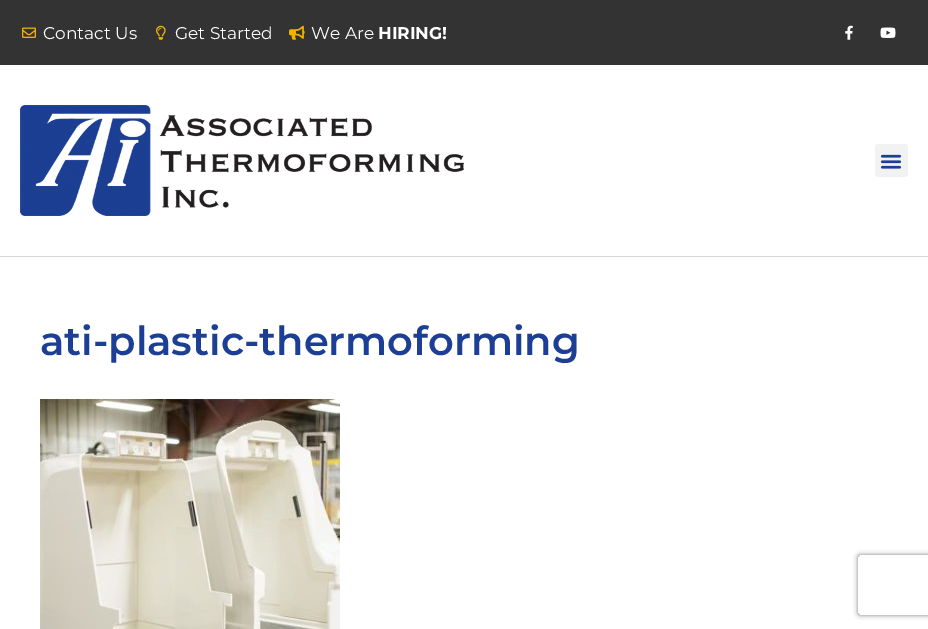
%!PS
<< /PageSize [928 629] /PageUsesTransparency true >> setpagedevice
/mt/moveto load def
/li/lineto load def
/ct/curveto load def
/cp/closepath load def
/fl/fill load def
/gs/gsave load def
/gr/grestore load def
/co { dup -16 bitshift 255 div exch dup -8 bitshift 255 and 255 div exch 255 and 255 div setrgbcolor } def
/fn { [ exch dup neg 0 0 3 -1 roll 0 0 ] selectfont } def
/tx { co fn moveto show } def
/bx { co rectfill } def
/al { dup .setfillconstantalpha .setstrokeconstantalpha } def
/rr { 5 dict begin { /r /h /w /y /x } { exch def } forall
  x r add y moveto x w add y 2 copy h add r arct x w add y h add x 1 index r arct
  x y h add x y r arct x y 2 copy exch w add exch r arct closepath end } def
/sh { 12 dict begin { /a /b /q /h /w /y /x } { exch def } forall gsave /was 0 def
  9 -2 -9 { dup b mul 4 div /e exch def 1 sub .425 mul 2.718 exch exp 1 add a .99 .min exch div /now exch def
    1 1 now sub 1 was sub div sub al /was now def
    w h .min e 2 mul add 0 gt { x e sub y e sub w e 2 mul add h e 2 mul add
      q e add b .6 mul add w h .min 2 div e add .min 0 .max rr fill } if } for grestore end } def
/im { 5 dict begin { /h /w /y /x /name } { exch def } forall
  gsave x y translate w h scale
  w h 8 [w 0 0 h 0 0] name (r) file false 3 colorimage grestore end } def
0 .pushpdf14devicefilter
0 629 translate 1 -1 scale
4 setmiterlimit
0 0 928 629 16#FFFFFF bx
0 0 928 65 16#333333 bx
(media/1.raw) 22 27 14 11 im
(media/2.raw) 156 25 10 15 im
(media/3.raw) 289 25 16 15 im
(media/4.raw) 845 25 8 15 im
(media/5.raw) 880 27 16 11 im
0 256 928 1 16#D8D8D8 bx
(media/6.raw) 20 105 444 111 im
16#F2F2F2 co
875 144 33 33 3 rr fl
(media/7.raw) 880 154 22 15 im
(media/8.raw) 40 399 300 230 im
gs
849 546 mt 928 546 li 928 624 li 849 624 li cp 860 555 mt 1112 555 li 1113 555 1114 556 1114 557 ct 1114 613 li 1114 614 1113 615 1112 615 ct 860 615 li 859 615 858 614 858 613 ct 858 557 li 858 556 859 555 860 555 ct cp eoclip newpath
16#808080 co
858 555 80 60 2 2.5 1 sh
gr
(Contact Us) 43 39 /Montserrat-Regular 17 16#FFFFFF tx
(Get Started) 175 39 /Montserrat-Regular 17 16#FFFFFF tx
(We Are) 311 39 /Montserrat-Regular 17 16#FFFFFF tx
(HIRING!) 378 39 /Montserrat-Bold 17 16#FFFFFF tx
(ati-plastic-thermoforming) 40 355 /Montserrat-SemiBold 40 16#1C3E94 tx
.poppdf14devicefilter showpage
